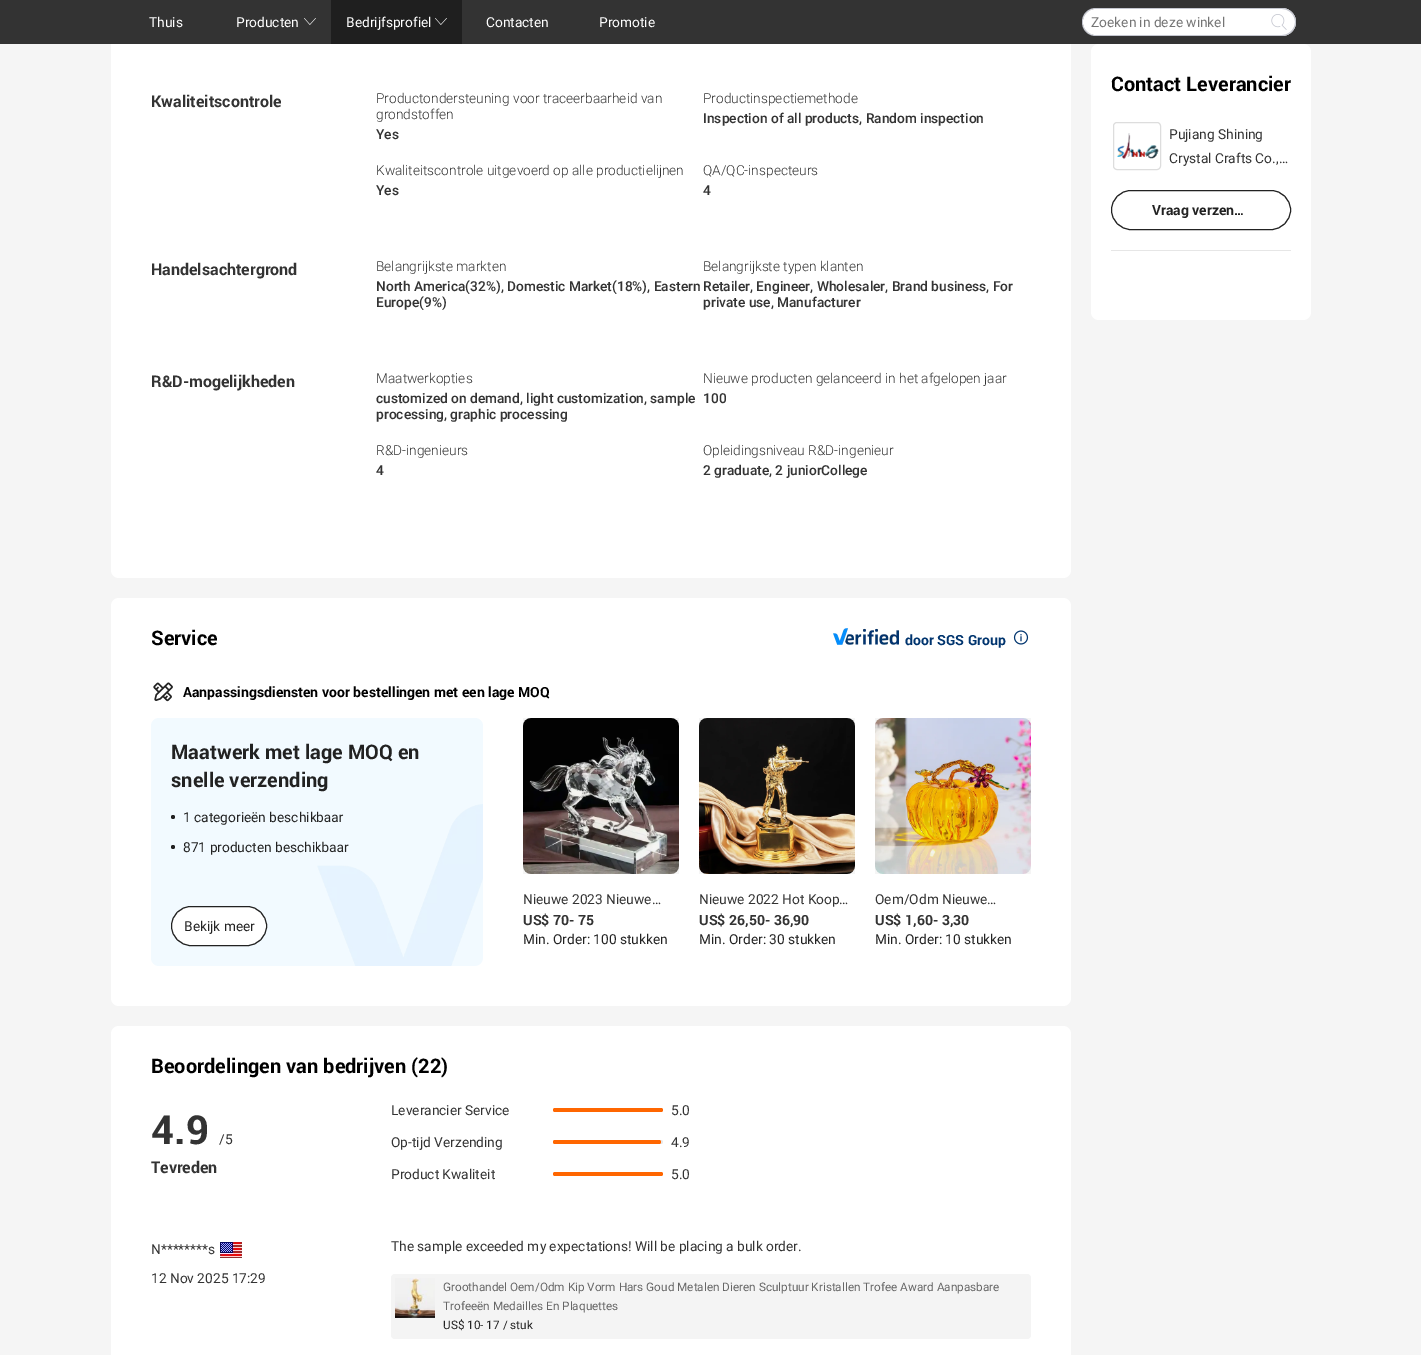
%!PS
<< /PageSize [1421 1355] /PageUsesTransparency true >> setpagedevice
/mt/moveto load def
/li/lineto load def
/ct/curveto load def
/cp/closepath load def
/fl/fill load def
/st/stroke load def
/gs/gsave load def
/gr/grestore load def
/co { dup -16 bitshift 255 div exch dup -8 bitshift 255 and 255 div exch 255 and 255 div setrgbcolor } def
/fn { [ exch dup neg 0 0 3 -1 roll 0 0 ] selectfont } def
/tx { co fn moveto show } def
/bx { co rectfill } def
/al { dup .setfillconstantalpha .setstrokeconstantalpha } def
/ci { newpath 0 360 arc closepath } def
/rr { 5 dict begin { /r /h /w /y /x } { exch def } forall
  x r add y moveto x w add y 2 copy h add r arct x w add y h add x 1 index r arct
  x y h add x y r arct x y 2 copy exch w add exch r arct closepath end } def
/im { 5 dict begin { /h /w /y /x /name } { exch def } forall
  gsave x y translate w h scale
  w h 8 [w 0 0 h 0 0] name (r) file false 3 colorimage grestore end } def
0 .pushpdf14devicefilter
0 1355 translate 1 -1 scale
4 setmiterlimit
0 0 1421 1355 16#F5F5F5 bx
16#FFFFFF co
111 -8 960 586 8 rr fl
0 0 1421 44 16#333333 bx
(media/1.raw) 304 18 12 7 im
331 0 131 44 16#1F1F1F bx
(media/2.raw) 435 18 12 7 im
16#C4C6CF co
1096 8 mt 1263 8 li 1263 36 li 1096 36 li 1088 36 1082 30 1082 22 ct 1082 14 1088 8 1096 8 ct cp 1096 9 mt 1263 9 li 1263 35 li 1096 35 li 1089 35 1083 29 1083 22 ct 1083 15 1089 9 1096 9 ct cp eofill
16#FFFFFF co
1096 9 mt 1262.5 9 li 1263 9 1263 9 1263 9.5 ct 1263 34.5 li 1263 35 1263 35 1262.5 35 ct 1096 35 li 1089 35 1083 29 1083 22 ct 1083 15 1089 9 1096 9 ct cp fl
1263 8 mt 1282 8 li 1289.5 8 1296 14.5 1296 22 ct 1296 29.5 1289.5 36 1282 36 ct 1263 36 li cp fl
16#C4C6CF co
1263 8 mt 1282 8 li 1289.5 8 1296 14.5 1296 22 ct 1296 29.5 1289.5 36 1282 36 ct 1263 36 li cp 1263 9 mt 1282 9 li 1289 9 1295 15 1295 22 ct 1295 29 1289 35 1282 35 ct 1263 35 li cp eofill
(media/3.raw) 1271 14 16 16 im
16#FFFFFF co
111 598 960 408 8 rr fl
(media/4.raw) 833 628 66 17 im
(media/5.raw) 1013 630 16 15 im
(media/6.raw) 153 682 20 20 im
16#F2FAFF co
151 718 332 248 8 rr fl
16#222222 co
173 817 2 ci fl
173 847 2 ci fl
16#FFFFFF co
171.5 906.5 95 39 19.5 rr gs fl gr
16#222222 co
st
(media/8.raw) 523 718 156 156 im
0.04 al
523 718 156 156 16#000000 bx
1 al
(media/9.raw) 699 718 156 156 im
0.04 al
699 718 156 156 16#000000 bx
1 al
(media/10.raw) 875 718 156 156 im
0.04 al
875 718 156 156 16#000000 bx
1 al
16#FFFFFF co
111 1026 960 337 8 rr fl
16#FF6600 co
553 1108 110 4 2 rr fl
16#E8E8E8 co
553 1140 110 4 2 rr fl
16#FF6600 co
553 1140 108 4 2 rr fl
553 1172 110 4 2 rr fl
(media/11.raw) 220 1242 22 16 im
16#F4F4F4 co
391 1274 640 65 4 rr fl
(media/12.raw) 395 1278 40 40 im
16#FFFFFF co
1091 44 220 276 8 rr fl
16#DDDDDD co
1113.5 122.5 47 47 3.5 rr st
(media/13.raw) 1117 133 42 26 im
16#222222 co
1111.5 190.5 179 39 19.5 rr st
1111 250 180 1 16#E6E6E6 bx
(Thuis) 149 27 /Roboto-Regular 14 16#FFFFFF tx
(Producten) 236 27 /Roboto-Regular 14 16#FFFFFF tx
(Bedrijfsprofiel) 346 27 /Roboto-Regular 14 16#FFFFFF tx
(Contacten) 486 27 /Roboto-Regular 14 16#FFFFFF tx
(Promotie) 599 27 /Roboto-Regular 14 16#FFFFFF tx
(Zoeken in deze winkel) 1091 27 /Roboto-Regular 14 16#757575 tx
(Kwaliteitscontrole) 151 107 /Roboto-Bold 16 16#333333 tx
(Productondersteuning voor traceerbaarheid van) 376 103 /Roboto-Light 14 16#333333 tx
(grondstoffen) 376 119 /Roboto-Light 14 16#333333 tx
(Yes) 376 139 /Roboto-Medium 14 16#333333 tx
(Productinspectiemethode) 703 103 /Roboto-Light 14 16#333333 tx
(Inspection of all products, Random inspection) 703 123 /Roboto-Medium 14 16#333333 tx
(Kwaliteitscontrole uitgevoerd op alle productielijnen) 376 175 /Roboto-Light 14 16#333333 tx
(Yes) 376 195 /Roboto-Medium 14 16#333333 tx
(QA/QC-inspecteurs) 703 175 /Roboto-Light 14 16#333333 tx
(4) 703 195 /Roboto-Medium 14 16#333333 tx
(Handelsachtergrond) 151 275 /Roboto-Bold 16 16#333333 tx
(Belangrijkste markten) 376 271 /Roboto-Light 14 16#333333 tx
(North America\(32%\), Domestic Market\(18%\), Eastern) 376 291 /Roboto-Medium 14 16#333333 tx
(Europe\(9%\)) 376 307 /Roboto-Medium 14 16#333333 tx
(Belangrijkste typen klanten) 703 271 /Roboto-Light 14 16#333333 tx
(Retailer, Engineer, Wholesaler, Brand business, For) 703 291 /Roboto-Medium 14 16#333333 tx
(private use, Manufacturer) 703 307 /Roboto-Medium 14 16#333333 tx
(R&D-mogelijkheden) 151 387 /Roboto-Bold 16 16#333333 tx
(Maatwerkopties) 376 383 /Roboto-Light 14 16#333333 tx
(customized on demand, light customization, sample) 376 403 /Roboto-Medium 14 16#333333 tx
(processing, graphic processing) 376 419 /Roboto-Medium 14 16#333333 tx
(Nieuwe producten gelanceerd in het afgelopen jaar) 703 383 /Roboto-Light 14 16#333333 tx
(100) 703 403 /Roboto-Medium 14 16#333333 tx
(R&D-ingenieurs) 376 455 /Roboto-Light 14 16#333333 tx
(4) 376 475 /Roboto-Medium 14 16#333333 tx
(Opleidingsniveau R&D-ingenieur) 703 455 /Roboto-Light 14 16#333333 tx
(2 graduate, 2 juniorCollege) 703 475 /Roboto-Medium 14 16#333333 tx
(Service) 151 645 /Roboto-Bold 20 16#000000 tx
(door SGS Group) 905 645 /Roboto-Bold 14 16#00346E tx
(Aanpassingsdiensten voor bestellingen met een lage MOQ) 183 697 /Roboto-Bold 14 16#000000 tx
(Maatwerk met lage MOQ en) 171 759 /Roboto-Bold 20 16#222222 tx
(snelle verzending) 171 787 /Roboto-Bold 20 16#222222 tx
(1 categorieën beschikbaar) 183 822 /Roboto-Regular 14 16#222222 tx
(871 producten beschikbaar) 183 852 /Roboto-Regular 14 16#222222 tx
(media/7.raw) 317 804 166 162 im
(Bekijk meer) 184 931 /Roboto-Regular 14 16#222222 tx
(Nieuwe 2023 Nieuwe…) 523 904 /Roboto-Regular 14 16#333333 tx
(US$ 70- 75) 523 925 /Roboto-Bold 14 16#333333 tx
(Min. Order: 100 stukken) 523 944 /Roboto-Regular 14 16#222222 tx
(Nieuwe 2022 Hot Koop…) 699 904 /Roboto-Regular 14 16#333333 tx
(US$ 26,50- 36,90) 699 925 /Roboto-Bold 14 16#333333 tx
(Min. Order: 30 stukken) 699 944 /Roboto-Regular 14 16#222222 tx
(Oem/Odm Nieuwe…) 875 904 /Roboto-Regular 14 16#333333 tx
(US$ 1,60- 3,30) 875 925 /Roboto-Bold 14 16#333333 tx
(Min. Order: 10 stukken) 875 944 /Roboto-Regular 14 16#222222 tx
(Beoordelingen van bedrijven \(22\)) 151 1073 /Roboto-Bold 20 16#000000 tx
(4.9) 151 1144 /Roboto-Bold 40 16#333333 tx
(/5) 219 1144 /Roboto-Regular 14 16#333333 tx
(Tevreden) 151 1173 /Roboto-Bold 16 16#333333 tx
(Leverancier Service) 391 1115 /Roboto-Regular 14 16#333333 tx
(5.0) 671 1115 /Roboto-Regular 14 16#333333 tx
(Op-tijd Verzending) 391 1147 /Roboto-Regular 14 16#333333 tx
(4.9) 671 1147 /Roboto-Regular 14 16#333333 tx
(Product Kwaliteit) 391 1179 /Roboto-Regular 14 16#333333 tx
(5.0) 671 1179 /Roboto-Regular 14 16#333333 tx
(N********s) 151 1254 /Roboto-Regular 14 16#333333 tx
(12 Nov 2025 17:29) 151 1283 /Roboto-Regular 14 16#333333 tx
(The sample exceeded my expectations! Will be placing a bulk order.) 391 1251 /Roboto-Regular 14 16#333333 tx
(Groothandel Oem/Odm Kip Vorm Hars Goud Metalen Dieren Sculptuur Kristallen Trofee Award Aanpasbare) 443 1291 /Roboto-Regular 12 16#666666 tx
(Trofeeën Medailles En Plaquettes) 443 1310 /Roboto-Regular 12 16#666666 tx
(US$ 10- 17 / stuk) 443 1329 /Roboto-Regular 12 16#222222 tx
(Contact Leverancier) 1111 91 /Roboto-Bold 20 16#000000 tx
(Pujiang Shining) 1169 139 /Roboto-Regular 14 16#333333 tx
(Crystal Crafts Co.,…) 1169 163 /Roboto-Regular 14 16#333333 tx
(Vraag verzen…) 1152 215 /Roboto-Bold 14 16#222222 tx
.poppdf14devicefilter showpage
